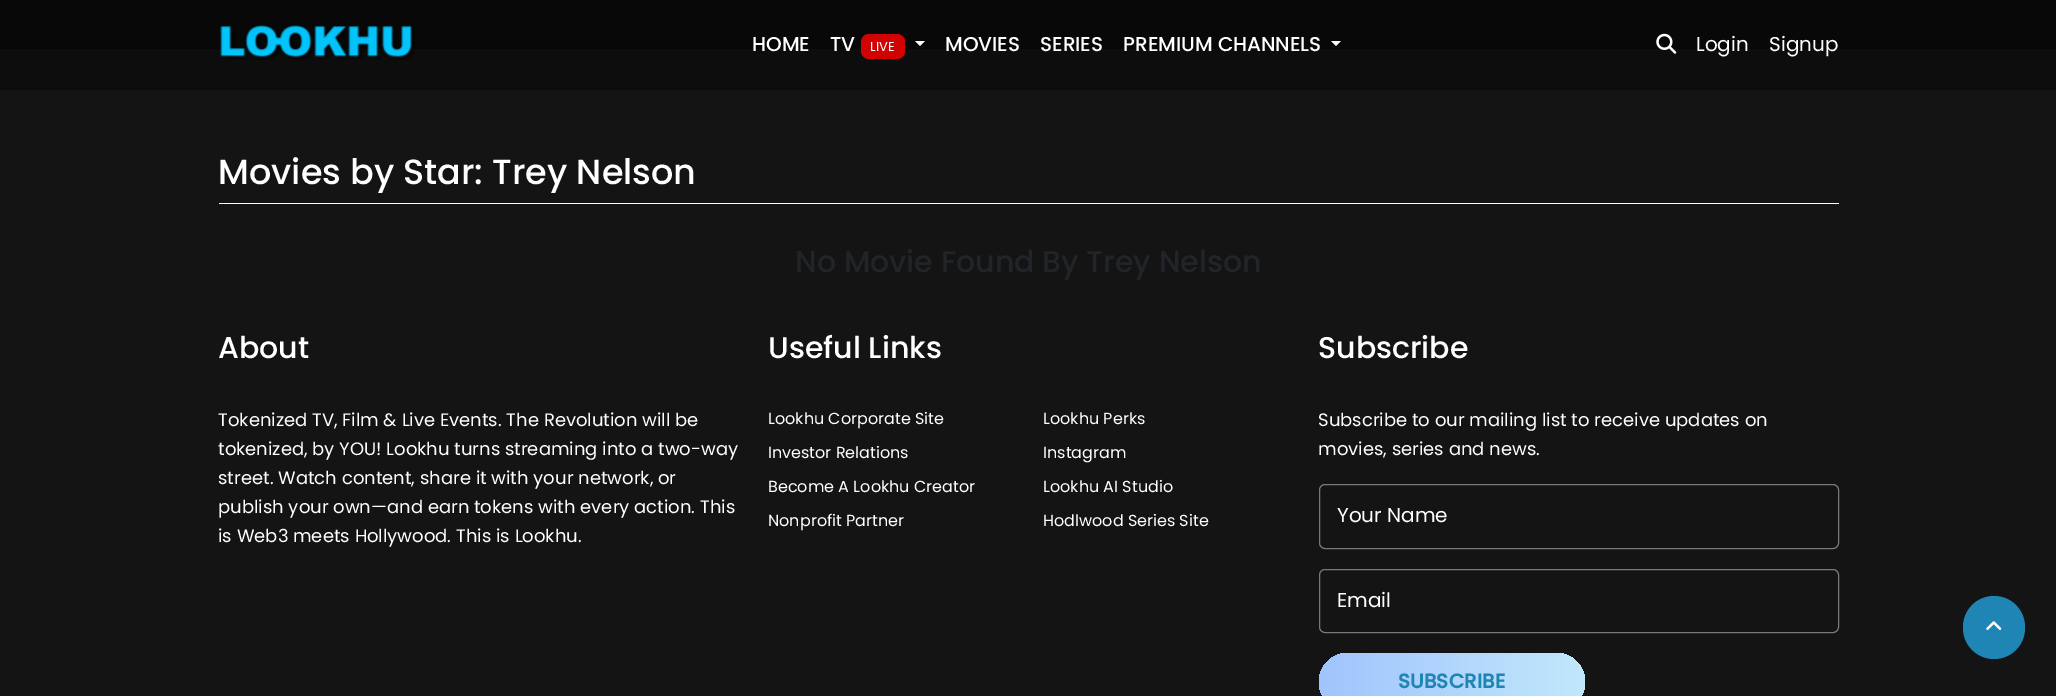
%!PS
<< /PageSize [2056 696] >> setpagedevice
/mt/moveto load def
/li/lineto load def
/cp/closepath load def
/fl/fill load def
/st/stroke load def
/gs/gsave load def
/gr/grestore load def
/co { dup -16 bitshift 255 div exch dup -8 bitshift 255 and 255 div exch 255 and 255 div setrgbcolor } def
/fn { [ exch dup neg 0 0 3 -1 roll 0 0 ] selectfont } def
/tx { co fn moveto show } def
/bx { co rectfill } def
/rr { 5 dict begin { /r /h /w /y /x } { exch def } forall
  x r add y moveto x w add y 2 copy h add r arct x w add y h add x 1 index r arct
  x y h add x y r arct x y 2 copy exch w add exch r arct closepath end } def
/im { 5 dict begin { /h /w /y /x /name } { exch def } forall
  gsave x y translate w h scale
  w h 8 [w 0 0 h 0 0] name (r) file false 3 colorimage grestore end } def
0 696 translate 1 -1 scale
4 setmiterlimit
0 0 2056 696 16#141414 bx
0 49 2056 41 16#0D0D0D bx
0 0 2056 49 16#080808 bx
(media/1.raw) 220 25 195 35 im
16#D00202 co
861 34 44 25 8 rr fl
16#FFFFFF co
915 41 mt 925 41 li 920 46 li cp fl
1331 41 mt 1341 41 li 1336 46 li cp fl
(media/2.raw) 1656 33 21 21 im
219 203 1620 1 16#FFFFFF bx
16#797979 co
1319.5 484.5 519 64 5.5 rr st
1319.5 569.5 519 63 5.5 rr st
gs 1319 653 266 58 29 rr clip newpath
<< /ShadingType 2 /ColorSpace /DeviceRGB /Coords [1319 682 1851 682] /Extend [true true] /Function << /FunctionType 3 /Domain [0 1] /Functions [<< /FunctionType 2 /Domain [0 1] /C0 [.631 .769 .992] /C1 [.761 .914 .984] /N 1 >> << /FunctionType 2 /Domain [0 1] /C0 [.761 .914 .984] /C1 [.631 .769 .992] /N 1 >>] /Bounds [.51] /Encode [0 1 0 1] >> >> shfill gr
16#1E85B4 co
1963 596 62 63 31 rr fl
(media/3.raw) 1986 621 16 9 im
(HOME) 752 51 /Poppins-Medium 20 16#FFFFFF tx
(TV) 830 51 /Poppins-Medium 20 16#FFFFFF tx
(LIVE) 870 51 /Poppins-Regular 13 16#FFFFFF tx
(MOVIES) 945 51 /Poppins-Medium 20 16#FFFFFF tx
(SERIES) 1040 51 /Poppins-Medium 20 16#FFFFFF tx
(PREMIUM CHANNELS) 1123 51 /Poppins-Medium 20 16#FFFFFF tx
(Login) 1696 51 /Poppins-Regular 20 16#FFFFFF tx
(Signup) 1769 51 /Poppins-Regular 20 16#FFFFFF tx
(Movies by Star: Trey Nelson) 218 184 /Poppins-Medium 35 16#FFFFFF tx
(No Movie Found By Trey Nelson) 795 272 /Poppins-Medium 30 16#212529 tx
(About) 218 358 /Poppins-Medium 30 16#FFFFFF tx
(Tokenized TV, Film & Live Events. The Revolution will be) 218 426 /Poppins-Regular 18 16#FFFFFF tx
(tokenized, by YOU! Lookhu turns streaming into a two-way) 218 455 /Poppins-Regular 18 16#FFFFFF tx
(street. Watch content, share it with your network, or) 218 484 /Poppins-Regular 18 16#FFFFFF tx
(publish your own—and earn tokens with every action. This) 218 513 /Poppins-Regular 18 16#FFFFFF tx
(is Web3 meets Hollywood. This is Lookhu.) 218 542 /Poppins-Regular 18 16#FFFFFF tx
(Useful Links) 768 358 /Poppins-Medium 30 16#FFFFFF tx
(Lookhu Corporate Site) 768 424 /Poppins-Regular 16 16#FFFFFF tx
(Investor Relations) 768 458 /Poppins-Regular 16 16#FFFFFF tx
(Become A Lookhu Creator) 768 492 /Poppins-Regular 16 16#FFFFFF tx
(Nonprofit Partner) 768 526 /Poppins-Regular 16 16#FFFFFF tx
(Lookhu Perks) 1043 424 /Poppins-Regular 16 16#FFFFFF tx
(Instagram) 1043 458 /Poppins-Regular 16 16#FFFFFF tx
(Lookhu AI Studio) 1043 492 /Poppins-Regular 16 16#FFFFFF tx
(Hodlwood Series Site) 1043 526 /Poppins-Regular 16 16#FFFFFF tx
(Subscribe) 1318 358 /Poppins-Medium 30 16#FFFFFF tx
(Subscribe to our mailing list to receive updates on) 1318 426 /Poppins-Regular 18 16#FFFFFF tx
(movies, series and news.) 1318 455 /Poppins-Regular 18 16#FFFFFF tx
(Your Name) 1337 522 /Poppins-Regular 20 16#FFFFFF tx
(Email) 1337 607 /Poppins-Regular 20 16#FFFFFF tx
(SUBSCRIBE) 1398 688 /Poppins-Bold 20 16#1E85B4 tx
showpage
